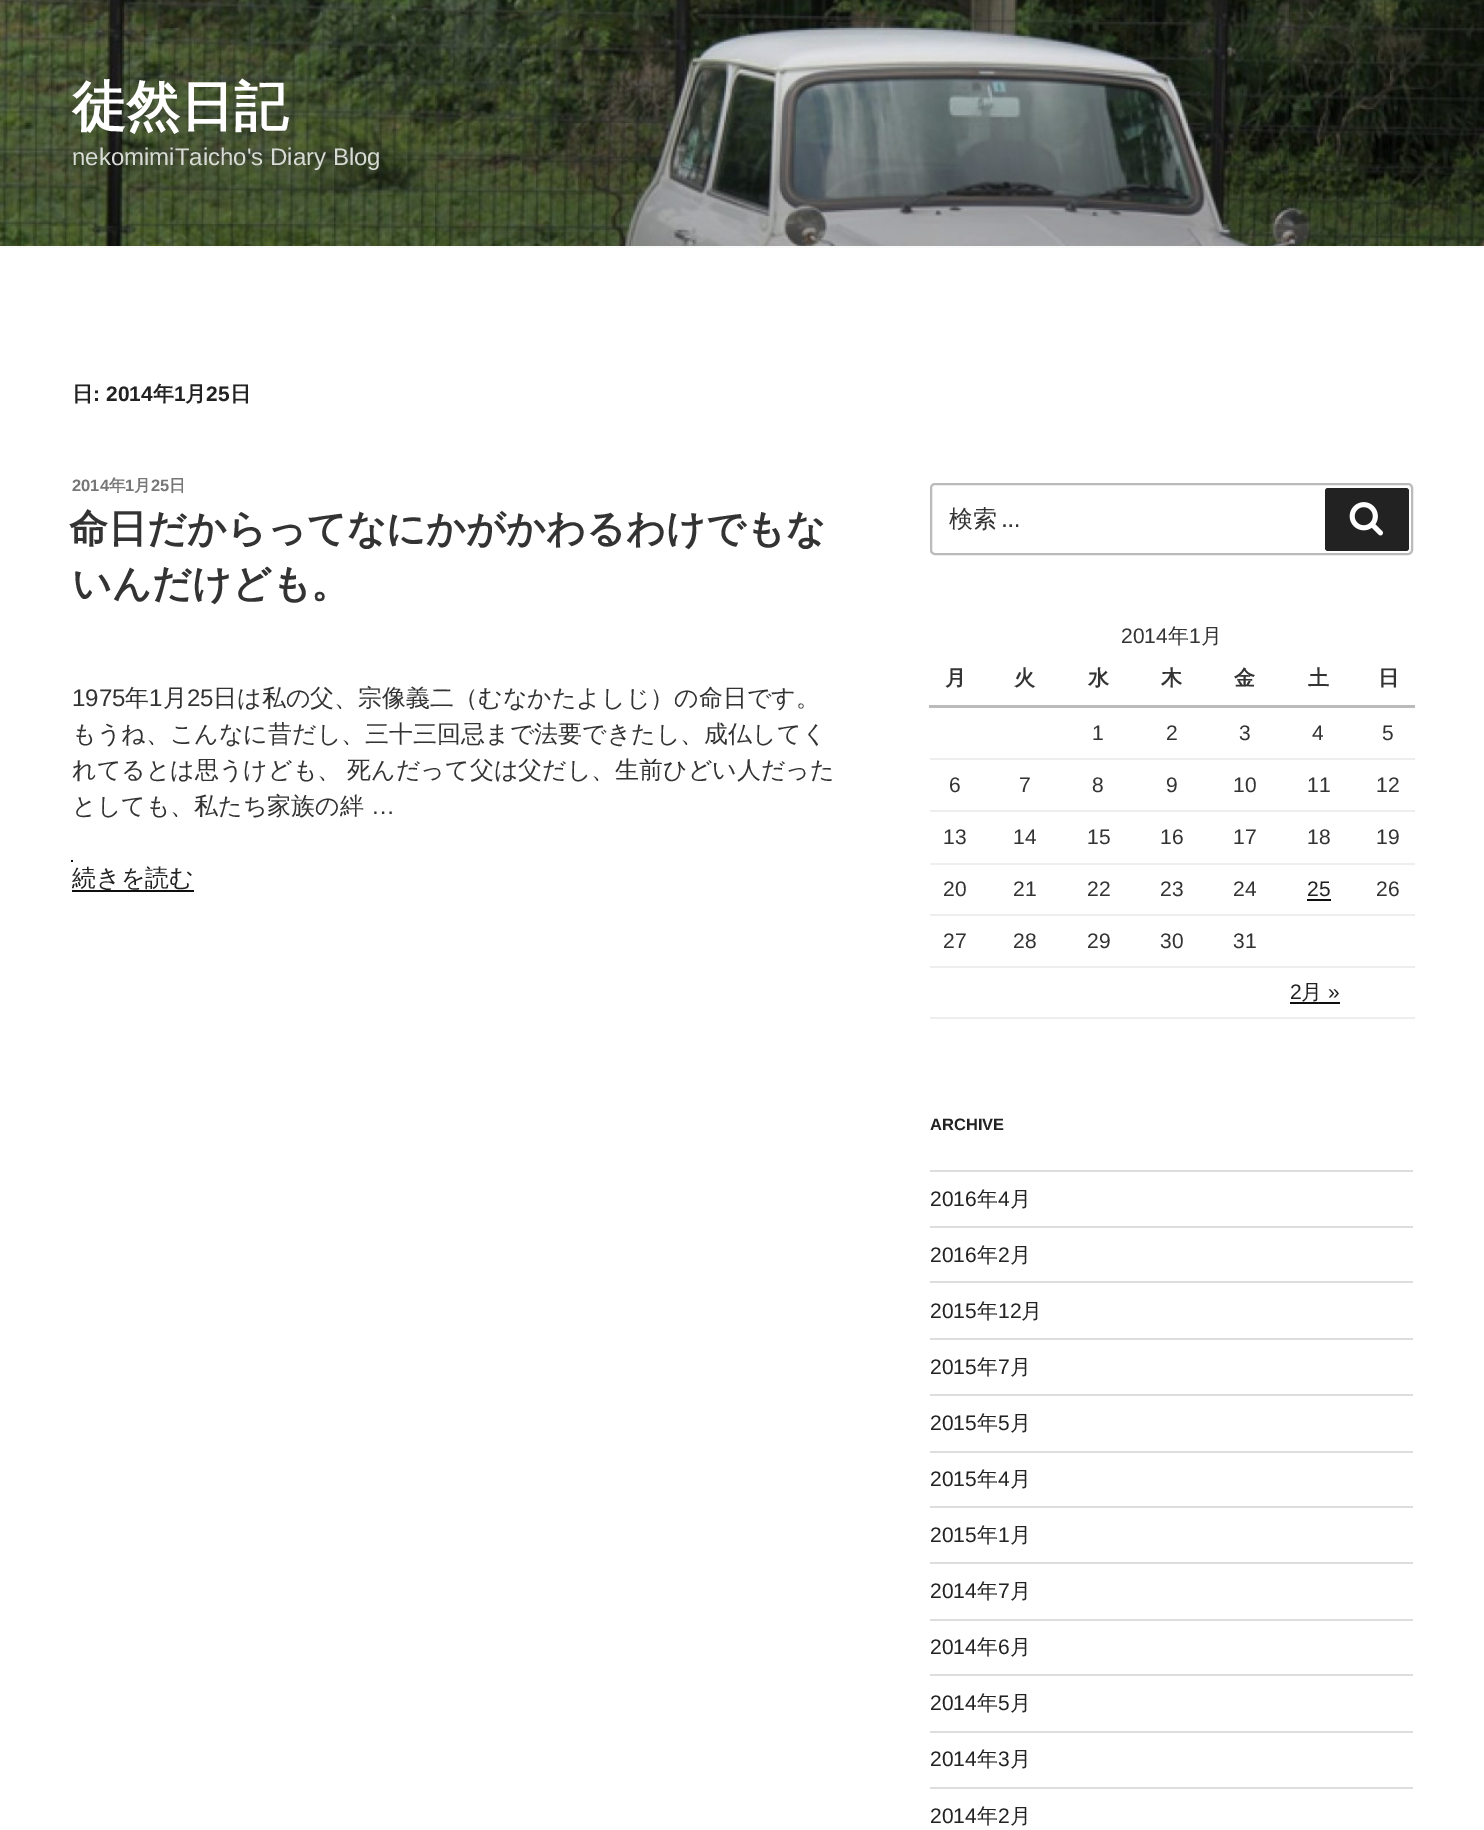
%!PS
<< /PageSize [1484 1830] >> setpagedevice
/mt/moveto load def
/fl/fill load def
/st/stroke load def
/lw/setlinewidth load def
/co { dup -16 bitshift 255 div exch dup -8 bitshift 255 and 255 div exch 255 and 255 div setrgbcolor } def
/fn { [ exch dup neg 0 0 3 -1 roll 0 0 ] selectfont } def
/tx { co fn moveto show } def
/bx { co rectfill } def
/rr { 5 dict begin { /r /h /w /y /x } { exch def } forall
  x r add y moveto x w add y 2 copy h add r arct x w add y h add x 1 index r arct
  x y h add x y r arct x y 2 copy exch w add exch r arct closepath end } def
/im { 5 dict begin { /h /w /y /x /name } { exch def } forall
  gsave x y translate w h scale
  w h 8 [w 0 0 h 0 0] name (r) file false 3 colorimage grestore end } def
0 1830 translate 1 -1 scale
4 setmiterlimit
0 0 1484 1830 16#FFFFFF bx
0 246 1484 2 16#FAFAFA bx
(media/1.raw) 0 0 1484 246 im
71 860 2 2 16#0F0F0F bx
72 890 122 2 16#0F0F0F bx
16#BBBBBB co
2 lw
931 484 481 70 4 rr st
16#222222 co
1325 488 84 63 3 rr fl
(media/2.raw) 1349 502 34 34 im
929 705 486 3 16#BBBBBB bx
930 758 485 2 16#EEEEEE bx
930 810 485 2 16#EEEEEE bx
930 863 485 2 16#EEEEEE bx
930 914 485 2 16#EEEEEE bx
1307 899 24 2 16#0F0F0F bx
930 966 485 2 16#EEEEEE bx
930 1017 485 2 16#EEEEEE bx
1290 1002 50 2 16#0F0F0F bx
930 1170 483 2 16#DDDDDD bx
930 1226 483 2 16#DDDDDD bx
930 1281 483 2 16#DDDDDD bx
930 1338 483 2 16#DDDDDD bx
930 1394 483 2 16#DDDDDD bx
930 1451 483 2 16#DDDDDD bx
930 1506 483 2 16#DDDDDD bx
930 1562 483 2 16#DDDDDD bx
930 1619 483 2 16#DDDDDD bx
930 1674 483 2 16#DDDDDD bx
930 1731 483 2 16#DDDDDD bx
930 1787 483 2 16#DDDDDD bx
(徒然日記) 72 125 /WenQuanYiZenHei-Bold 54 16#FFFFFF tx
(nekomimiTaicho's Diary Blog) 72 165 /LiberationSans-Regular 24 16#D8DBD5 tx
(日) 72 401 /WenQuanYiZenHei-Bold 21 16#222222 tx
(: 2014) 93 401 /LiberationSans-Bold 21 16#222222 tx
(年) 153 401 /WenQuanYiZenHei-Bold 21 16#222222 tx
(1) 174 401 /LiberationSans-Bold 21 16#222222 tx
(月) 185 401 /WenQuanYiZenHei-Bold 21 16#222222 tx
(25) 206 401 /LiberationSans-Bold 21 16#222222 tx
(日) 230 401 /WenQuanYiZenHei-Bold 21 16#222222 tx
(2014) 72 491 /LiberationSans-Bold 16.5 16#767676 tx
(年) 109 491 /WenQuanYiZenHei-Bold 16.5 16#767676 tx
(1) 125 491 /LiberationSans-Bold 16.5 16#767676 tx
(月) 134 491 /WenQuanYiZenHei-Bold 16.5 16#767676 tx
(25) 151 491 /LiberationSans-Bold 16.5 16#767676 tx
(日) 169 491 /WenQuanYiZenHei-Bold 16.5 16#767676 tx
(命日だからってなにかがかわるわけでもな) 69 542 /WenQuanYiZenHei-Bold 39 16#333333 tx
(いんだけども。) 72 597 /WenQuanYiZenHei-Bold 39 16#333333 tx
(1975) 72 706 /LiberationSans-Regular 24 16#333333 tx
(年) 125 706 /WenQuanYiZenHei-Medium 24 16#333333 tx
(1) 149 706 /LiberationSans-Regular 24 16#333333 tx
(月) 163 706 /WenQuanYiZenHei-Medium 24 16#333333 tx
(25) 187 706 /LiberationSans-Regular 24 16#333333 tx
(日は私の父、宗像義二（むなかたよしじ）の命日です。) 213 706 /WenQuanYiZenHei-Medium 24 16#333333 tx
(もうね、こんなに昔だし、三十三回忌まで法要できたし、成仏してく) 72 742 /WenQuanYiZenHei-Medium 24 16#333333 tx
72 778 mt -1 0 32 (れてるとは思うけども、 死んだって父は父だし、生前ひどい人だった) widthshow
(としても、私たち家族の絆) 72 814 /WenQuanYiZenHei-Medium 24 16#333333 tx
(…) 371 814 /LiberationSans-Regular 24 16#333333 tx
(続きを読む) 72 886 /WenQuanYiZenHei-Medium 24 16#222222 tx
(検索) 949 527 /WenQuanYiZenHei-Medium 24 16#333333 tx
(…) 1002 527 /LibreFranklin-Regular 24 16#333333 tx
(2014) 1121 643 /LiberationSans-Regular 21 16#333333 tx
(年) 1168 643 /WenQuanYiZenHei-Medium 21 16#333333 tx
(1) 1189 643 /LiberationSans-Regular 21 16#333333 tx
(月) 1201 643 /WenQuanYiZenHei-Medium 21 16#333333 tx
(月) 945 685 /WenQuanYiZenHei-Bold 21 16#333333 tx
(火) 1014 685 /WenQuanYiZenHei-Bold 21 16#333333 tx
(水) 1088 685 /WenQuanYiZenHei-Bold 21 16#333333 tx
(木) 1161 685 /WenQuanYiZenHei-Bold 21 16#333333 tx
(金) 1234 685 /WenQuanYiZenHei-Bold 21 16#333333 tx
(土) 1308 685 /WenQuanYiZenHei-Bold 21 16#333333 tx
(日) 1378 685 /WenQuanYiZenHei-Bold 21 16#333333 tx
(1) 1092 740 /LiberationSans-Regular 21 16#333333 tx
(2) 1166 740 /LiberationSans-Regular 21 16#333333 tx
(3) 1239 740 /LiberationSans-Regular 21 16#333333 tx
(4) 1312 740 /LiberationSans-Regular 21 16#333333 tx
(5) 1382 740 /LiberationSans-Regular 21 16#333333 tx
(6) 949 792 /LiberationSans-Regular 21 16#333333 tx
(7) 1019 792 /LiberationSans-Regular 21 16#333333 tx
(8) 1092 792 /LiberationSans-Regular 21 16#333333 tx
(9) 1166 792 /LiberationSans-Regular 21 16#333333 tx
(10) 1233 792 /LiberationSans-Regular 21 16#333333 tx
(11) 1307 792 /LiberationSans-Regular 21 16#333333 tx
(12) 1376 792 /LiberationSans-Regular 21 16#333333 tx
(13) 943 844 /LiberationSans-Regular 21 16#333333 tx
(14) 1013 844 /LiberationSans-Regular 21 16#333333 tx
(15) 1087 844 /LiberationSans-Regular 21 16#333333 tx
(16) 1160 844 /LiberationSans-Regular 21 16#333333 tx
(17) 1233 844 /LiberationSans-Regular 21 16#333333 tx
(18) 1307 844 /LiberationSans-Regular 21 16#333333 tx
(19) 1376 844 /LiberationSans-Regular 21 16#333333 tx
(20) 943 896 /LiberationSans-Regular 21 16#333333 tx
(21) 1013 896 /LiberationSans-Regular 21 16#333333 tx
(22) 1087 896 /LiberationSans-Regular 21 16#333333 tx
(23) 1160 896 /LiberationSans-Regular 21 16#333333 tx
(24) 1233 896 /LiberationSans-Regular 21 16#333333 tx
(25) 1307 896 /LiberationSans-Regular 21 16#222222 tx
(26) 1376 896 /LiberationSans-Regular 21 16#333333 tx
(27) 943 948 /LiberationSans-Regular 21 16#333333 tx
(28) 1013 948 /LiberationSans-Regular 21 16#333333 tx
(29) 1087 948 /LiberationSans-Regular 21 16#333333 tx
(30) 1160 948 /LiberationSans-Regular 21 16#333333 tx
(31) 1233 948 /LiberationSans-Regular 21 16#333333 tx
(2) 1290 999 /LiberationSans-Regular 21 16#222222 tx
(月) 1301 999 /WenQuanYiZenHei-Medium 21 16#222222 tx
(») 1328 999 /LiberationSans-Regular 21 16#222222 tx
(ARCHIVE) 930 1130 /LiberationSans-Bold 16.5 16#222222 tx
(2016) 930 1206 /LiberationSans-Regular 21 16#222222 tx
(年) 977 1206 /WenQuanYiZenHei-Medium 21 16#222222 tx
(4) 998 1206 /LiberationSans-Regular 21 16#222222 tx
(月) 1010 1206 /WenQuanYiZenHei-Medium 21 16#222222 tx
(2016) 930 1262 /LiberationSans-Regular 21 16#222222 tx
(年) 977 1262 /WenQuanYiZenHei-Medium 21 16#222222 tx
(2) 998 1262 /LiberationSans-Regular 21 16#222222 tx
(月) 1010 1262 /WenQuanYiZenHei-Medium 21 16#222222 tx
(2015) 930 1318 /LiberationSans-Regular 21 16#222222 tx
(年) 977 1318 /WenQuanYiZenHei-Medium 21 16#222222 tx
(12) 998 1318 /LiberationSans-Regular 21 16#222222 tx
(月) 1021 1318 /WenQuanYiZenHei-Medium 21 16#222222 tx
(2015) 930 1374 /LiberationSans-Regular 21 16#222222 tx
(年) 977 1374 /WenQuanYiZenHei-Medium 21 16#222222 tx
(7) 998 1374 /LiberationSans-Regular 21 16#222222 tx
(月) 1010 1374 /WenQuanYiZenHei-Medium 21 16#222222 tx
(2015) 930 1430 /LiberationSans-Regular 21 16#222222 tx
(年) 977 1430 /WenQuanYiZenHei-Medium 21 16#222222 tx
(5) 998 1430 /LiberationSans-Regular 21 16#222222 tx
(月) 1010 1430 /WenQuanYiZenHei-Medium 21 16#222222 tx
(2015) 930 1486 /LiberationSans-Regular 21 16#222222 tx
(年) 977 1486 /WenQuanYiZenHei-Medium 21 16#222222 tx
(4) 998 1486 /LiberationSans-Regular 21 16#222222 tx
(月) 1010 1486 /WenQuanYiZenHei-Medium 21 16#222222 tx
(2015) 930 1542 /LiberationSans-Regular 21 16#222222 tx
(年) 977 1542 /WenQuanYiZenHei-Medium 21 16#222222 tx
(1) 998 1542 /LiberationSans-Regular 21 16#222222 tx
(月) 1010 1542 /WenQuanYiZenHei-Medium 21 16#222222 tx
(2014) 930 1598 /LiberationSans-Regular 21 16#222222 tx
(年) 977 1598 /WenQuanYiZenHei-Medium 21 16#222222 tx
(7) 998 1598 /LiberationSans-Regular 21 16#222222 tx
(月) 1010 1598 /WenQuanYiZenHei-Medium 21 16#222222 tx
(2014) 930 1654 /LiberationSans-Regular 21 16#222222 tx
(年) 977 1654 /WenQuanYiZenHei-Medium 21 16#222222 tx
(6) 998 1654 /LiberationSans-Regular 21 16#222222 tx
(月) 1010 1654 /WenQuanYiZenHei-Medium 21 16#222222 tx
(2014) 930 1710 /LiberationSans-Regular 21 16#222222 tx
(年) 977 1710 /WenQuanYiZenHei-Medium 21 16#222222 tx
(5) 998 1710 /LiberationSans-Regular 21 16#222222 tx
(月) 1010 1710 /WenQuanYiZenHei-Medium 21 16#222222 tx
(2014) 930 1766 /LiberationSans-Regular 21 16#222222 tx
(年) 977 1766 /WenQuanYiZenHei-Medium 21 16#222222 tx
(3) 998 1766 /LiberationSans-Regular 21 16#222222 tx
(月) 1010 1766 /WenQuanYiZenHei-Medium 21 16#222222 tx
(2014) 930 1823 /LiberationSans-Regular 21 16#222222 tx
(年) 977 1823 /WenQuanYiZenHei-Medium 21 16#222222 tx
(2) 998 1823 /LiberationSans-Regular 21 16#222222 tx
(月) 1010 1823 /WenQuanYiZenHei-Medium 21 16#222222 tx
showpage
